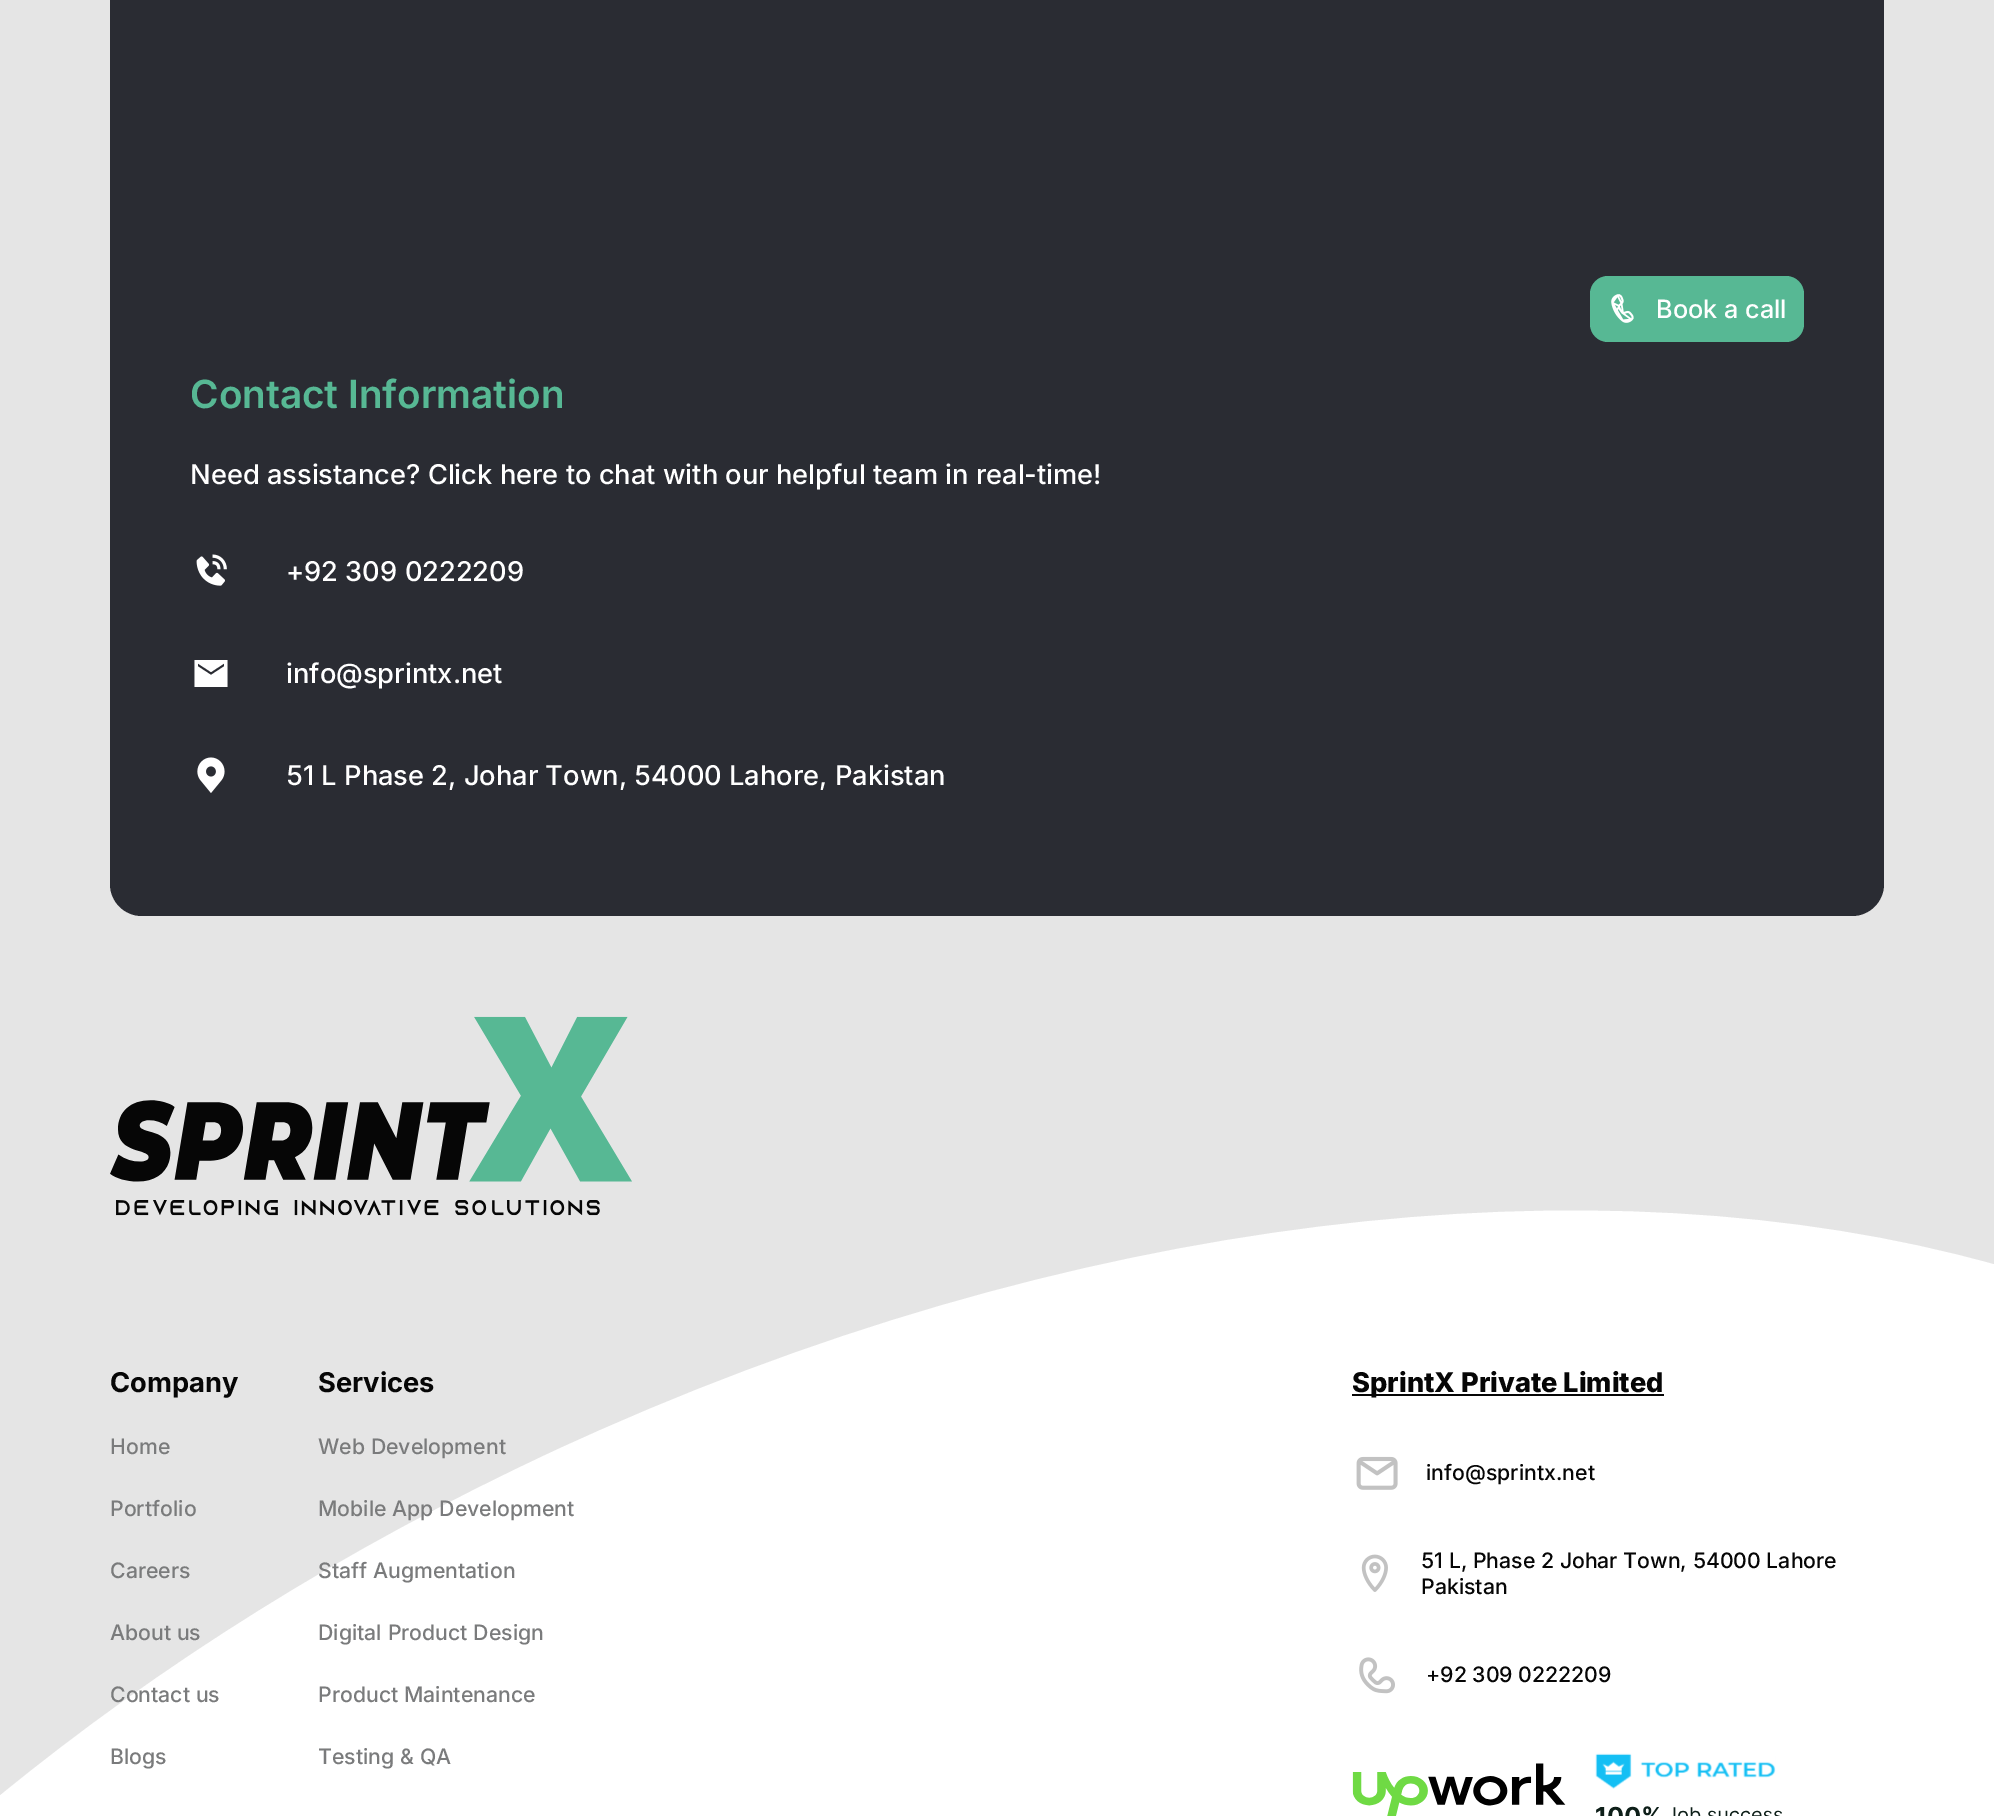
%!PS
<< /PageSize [1994 1816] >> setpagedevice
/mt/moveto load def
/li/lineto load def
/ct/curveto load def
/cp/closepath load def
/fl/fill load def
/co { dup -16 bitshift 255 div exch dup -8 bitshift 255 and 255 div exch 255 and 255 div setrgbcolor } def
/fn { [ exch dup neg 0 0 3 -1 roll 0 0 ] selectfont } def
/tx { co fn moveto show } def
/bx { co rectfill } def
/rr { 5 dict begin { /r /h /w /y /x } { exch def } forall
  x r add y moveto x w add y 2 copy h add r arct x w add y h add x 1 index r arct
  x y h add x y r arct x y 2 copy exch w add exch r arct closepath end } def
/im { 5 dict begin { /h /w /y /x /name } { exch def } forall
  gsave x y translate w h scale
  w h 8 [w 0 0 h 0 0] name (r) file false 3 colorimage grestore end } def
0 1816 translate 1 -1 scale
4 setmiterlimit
0 0 1994 1816 16#FFFFFF bx
0 0 1994 1042 16#E5E5E5 bx
16#2A2C33 co
110 -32 1774 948 32 rr fl
16#57B894 co
1590 276 214 66 18 rr fl
(media/1.raw) 1611 294 23 29 im
(media/2.raw) 196 554 31 32 im
16#FFFFFF co
227.5 660 mt 194.5 660 li 194.5 687 li 227.5 687 li cp 224 666.5 mt 211 675 li 198 666.5 li 198 663.5 li 211 672 li 224 663.5 li cp fl
(media/3.raw) 197 757 28 36 im
16#E5E5E5 co
1994 1042 mt 0 1042 li 0 1795 li 159 1665 345 1548 551 1452 ct 1069 1211 1600 1154 1994 1264 ct cp eofill
(media/4.raw) 110 1016 522 200 im
1352 1394 312 2 16#060606 bx
(media/5.raw) 1356 1456 42 34 im
(media/6.raw) 1361 1554 27 38 im
(media/7.raw) 1359 1657 36 37 im
(media/8.raw) 1352 1753 430 63 im
(Book a call) 1656 318 /Inter-Medium 25.25 16#FFFFFF tx
(Contact Information) 190 408 /Inter-SemiBold 38.75 16#57B894 tx
(Need assistance? Click here to chat with our helpful team in real-time!) 190 484 /Inter-Medium 27.25 16#FFFFFF tx
(+92 309 0222209) 286 581 /Inter-Medium 27.25 16#FFFFFF tx
(info@sprintx.net) 286 683 /Inter-Medium 27.25 16#FFFFFF tx
(51 L Phase 2, Johar Town, 54000 Lahore, Pakistan) 286 785 /Inter-Medium 27.25 16#FFFFFF tx
(Company) 110 1392 /Inter-Bold 27.25 16#060606 tx
(Home) 110 1454 /Inter-Medium 21.25 16#7A7B7C tx
(Portfolio) 110 1516 /Inter-Medium 21.25 16#7A7B7C tx
(Careers) 110 1578 /Inter-Medium 21.25 16#7A7B7C tx
(About us) 110 1640 /Inter-Medium 21.25 16#7A7B7C tx
(Contact us) 110 1702 /Inter-Medium 21.25 16#7A7B7C tx
(Blogs) 110 1764 /Inter-Medium 21.25 16#7A7B7C tx
(Services) 318 1392 /Inter-Bold 27.25 16#060606 tx
(Web Development) 318 1454 /Inter-Medium 21.25 16#7A7B7C tx
(Mobile App Development) 318 1516 /Inter-Medium 21.25 16#7A7B7C tx
(Staff Augmentation) 318 1578 /Inter-Medium 21.25 16#7A7B7C tx
(Digital Product Design) 318 1640 /Inter-Medium 21.25 16#7A7B7C tx
(Product Maintenance) 318 1702 /Inter-Medium 21.25 16#7A7B7C tx
(Testing & QA) 318 1764 /Inter-Medium 21.25 16#7A7B7C tx
(SprintX Private Limited) 1352 1392 /Inter-ExtraBold 27.25 16#060606 tx
(info@sprintx.net) 1426 1480 /Inter-Medium 21.25 16#060606 tx
(51 L, Phase 2 Johar Town, 54000 Lahore) 1421 1568 /Inter-Medium 21.25 16#060606 tx
(Pakistan) 1421 1594 /Inter-Medium 21.25 16#060606 tx
(+92 309 0222209) 1426 1682 /Inter-Medium 21.25 16#060606 tx
showpage
